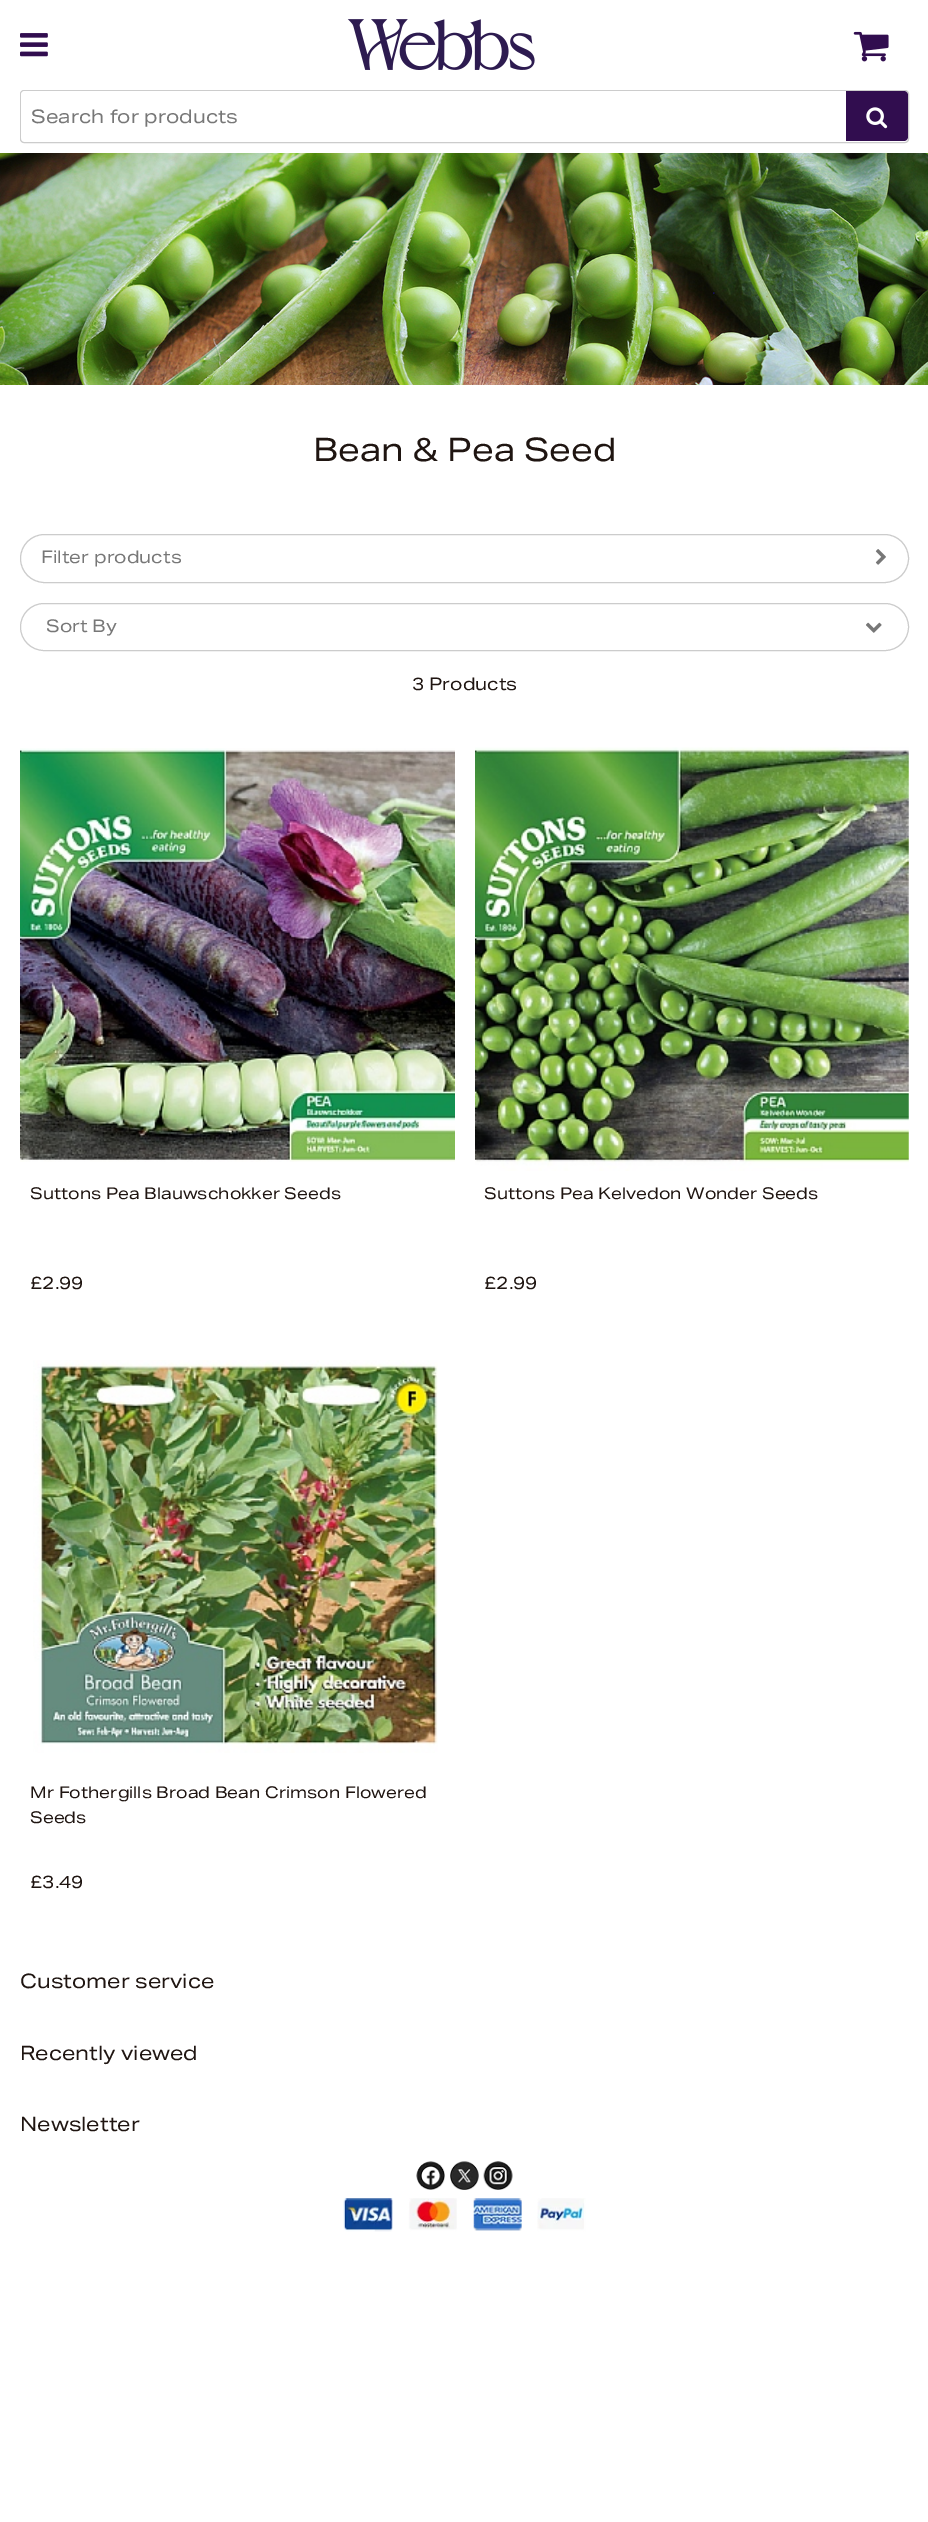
%!PS
<< /PageSize [928 2522] >> setpagedevice
/mt/moveto load def
/li/lineto load def
/ct/curveto load def
/cp/closepath load def
/fl/fill load def
/st/stroke load def
/co { dup -16 bitshift 255 div exch dup -8 bitshift 255 and 255 div exch 255 and 255 div setrgbcolor } def
/fn { [ exch dup neg 0 0 3 -1 roll 0 0 ] selectfont } def
/tx { co fn moveto show } def
/bx { co rectfill } def
/rr { 5 dict begin { /r /h /w /y /x } { exch def } forall
  x r add y moveto x w add y 2 copy h add r arct x w add y h add x 1 index r arct
  x y h add x y r arct x y 2 copy exch w add exch r arct closepath end } def
/im { 5 dict begin { /h /w /y /x /name } { exch def } forall
  gsave x y translate w h scale
  w h 8 [w 0 0 h 0 0] name (r) file false 3 colorimage grestore end } def
0 2522 translate 1 -1 scale
4 setmiterlimit
0 0 928 2522 16#FFFFFF bx
(media/1.raw) 20 33 28 24 im
(media/2.raw) 347 19 188 51 im
(media/3.raw) 853 31 36 31 im
16#CCCCCC co
20.5 90.5 888 52 3.5 rr st
16#FFFFFF co
25 91 mt 846 91 li 846 141 li 25 141 li 23 141 21 139 21 137 ct 21 95 li 21 93 23 91 25 91 ct cp fl
16#310D4F co
846 91 mt 904 91 li 906 91 908 93 908 95 ct 908 137 li 908 139 906 141 904 141 ct 846 141 li cp fl
(media/4.raw) 866 107 22 22 im
(media/5.raw) 0 153 928 232 im
16#CCCCCC co
20.5 534.5 888 48 24 rr st
(media/6.raw) 875 549 11 16 im
20.5 603.5 888 47 23.5 rr st
(media/7.raw) 866 622 16 11 im
(media/8.raw) 20 748 435 414 im
(media/9.raw) 475 747 434 424 im
(media/10.raw) 33 1360 405 393 im
(media/11.raw) 416 2161 29 29 im
(media/12.raw) 450 2161 29 29 im
(media/13.raw) 483 2161 30 29 im
(media/14.raw) 343 2198 243 34 im
(Search for products) 31 123 /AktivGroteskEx-Regular 18.75 16#777777 tx
(Bean & Pea Seed) 313 461 /AktivGroteskEx-Regular 32.5 16#1F1511 tx
(Filter products) 41 563 /AktivGroteskEx-Regular 17.5 16#777777 tx
(Sort By) 46 632 /AktivGroteskEx-Regular 17.5 16#777777 tx
(3 Products) 412 690 /AktivGroteskEx-Regular 17.5 16#1F1511 tx
(Suttons Pea Blauwschokker Seeds) 30 1199 /AktivGroteskEx-Regular 16.25 16#1F1511 tx
(£2.99) 30 1289 /AktivGroteskEx-Regular 17.5 16#1F1511 tx
(Suttons Pea Kelvedon Wonder Seeds) 484 1199 /AktivGroteskEx-Regular 16.25 16#1F1511 tx
(£2.99) 484 1289 /AktivGroteskEx-Regular 17.5 16#1F1511 tx
(Mr Fothergills Broad Bean Crimson Flowered) 30 1798 /AktivGroteskEx-Regular 16.25 16#1F1511 tx
(Seeds) 30 1823 /AktivGroteskEx-Regular 16.25 16#1F1511 tx
(£3.49) 30 1888 /AktivGroteskEx-Regular 17.5 16#1F1511 tx
(Customer service) 20 1988 /AktivGroteskEx-Regular 20 16#1F1511 tx
(Recently viewed) 20 2060 /AktivGroteskEx-Regular 20 16#1F1511 tx
(Newsletter) 20 2131 /AktivGroteskEx-Regular 20 16#1F1511 tx
showpage
